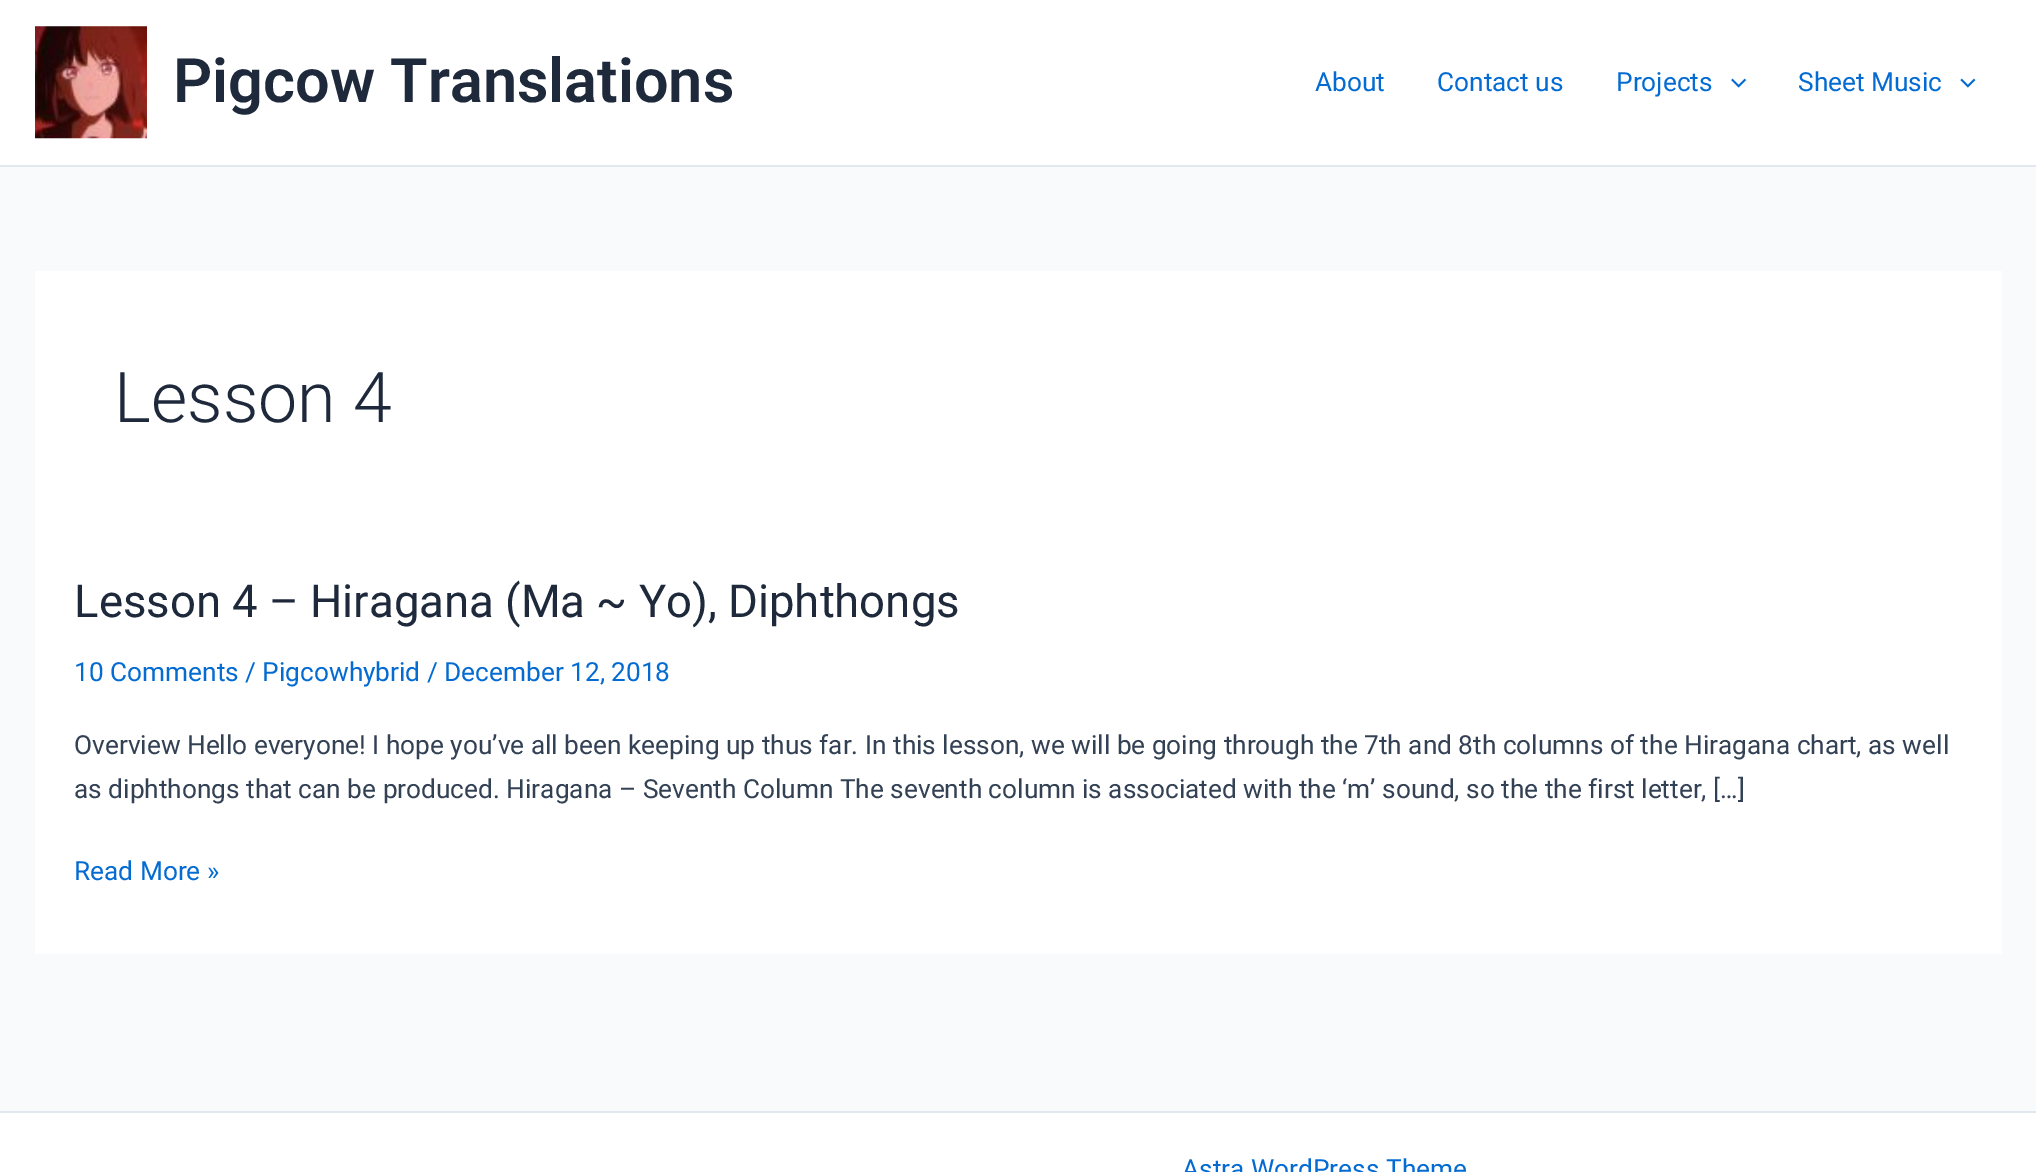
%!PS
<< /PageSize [2036 1172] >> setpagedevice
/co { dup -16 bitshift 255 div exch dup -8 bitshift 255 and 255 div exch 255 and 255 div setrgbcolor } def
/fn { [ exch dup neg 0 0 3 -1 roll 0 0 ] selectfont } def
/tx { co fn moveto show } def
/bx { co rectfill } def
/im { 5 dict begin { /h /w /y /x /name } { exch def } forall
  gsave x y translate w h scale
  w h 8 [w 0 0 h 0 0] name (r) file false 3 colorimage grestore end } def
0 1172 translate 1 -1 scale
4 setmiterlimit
0 0 2036 1172 16#F9FAFB bx
0 0 2036 165 16#FFFFFF bx
0 165 2036 2 16#E2E8F0 bx
(media/1.raw) 35 26 112 113 im
(media/2.raw) 1731 78 16 10 im
(media/3.raw) 1960 78 16 10 im
35 271 1967 683 16#FFFFFF bx
0 1113 2036 59 16#FFFFFF bx
0 1111 2036 2 16#E2E8F0 bx
(Pigcow Translations) 173 102 /Roboto-SemiBold 61.25 16#1E293B tx
(About) 1315 91 /Roboto-Regular 26.25 16#046BD2 tx
(Contact us) 1437 91 /Roboto-Regular 26.25 16#046BD2 tx
(Projects) 1616 91 /Roboto-Regular 26.25 16#046BD2 tx
(Sheet Music) 1798 91 /Roboto-Regular 26.25 16#046BD2 tx
(Lesson 4) 114 422 /Roboto-Light 70 16#1E293B tx
(Lesson 4 – Hiragana \(Ma ~ Yo\), Diphthongs) 74 617 /Roboto-Regular 45.5 16#1E293B tx
(10 Comments / Pigcowhybrid / December 12, 2018) 74 681 /Roboto-Regular 26.25 16#046BD2 tx
(Overview Hello everyone! I hope you’ve all been keeping up thus far. In this lesson, we will be going through the 7th and 8th columns of the Hiragana chart, as well) 74 754 /Roboto-Regular 26.25 16#334155 tx
(as diphthongs that can be produced. Hiragana – Seventh Column The seventh column is associated with the ‘m’ sound, so the the first letter, […]) 74 798 /Roboto-Regular 26.25 16#334155 tx
(Read More ») 74 880 /Roboto-Regular 26.25 16#046BD2 tx
(Astra WordPress Theme) 1182 1178 /Roboto-Regular 26.25 16#046BD2 tx
showpage
